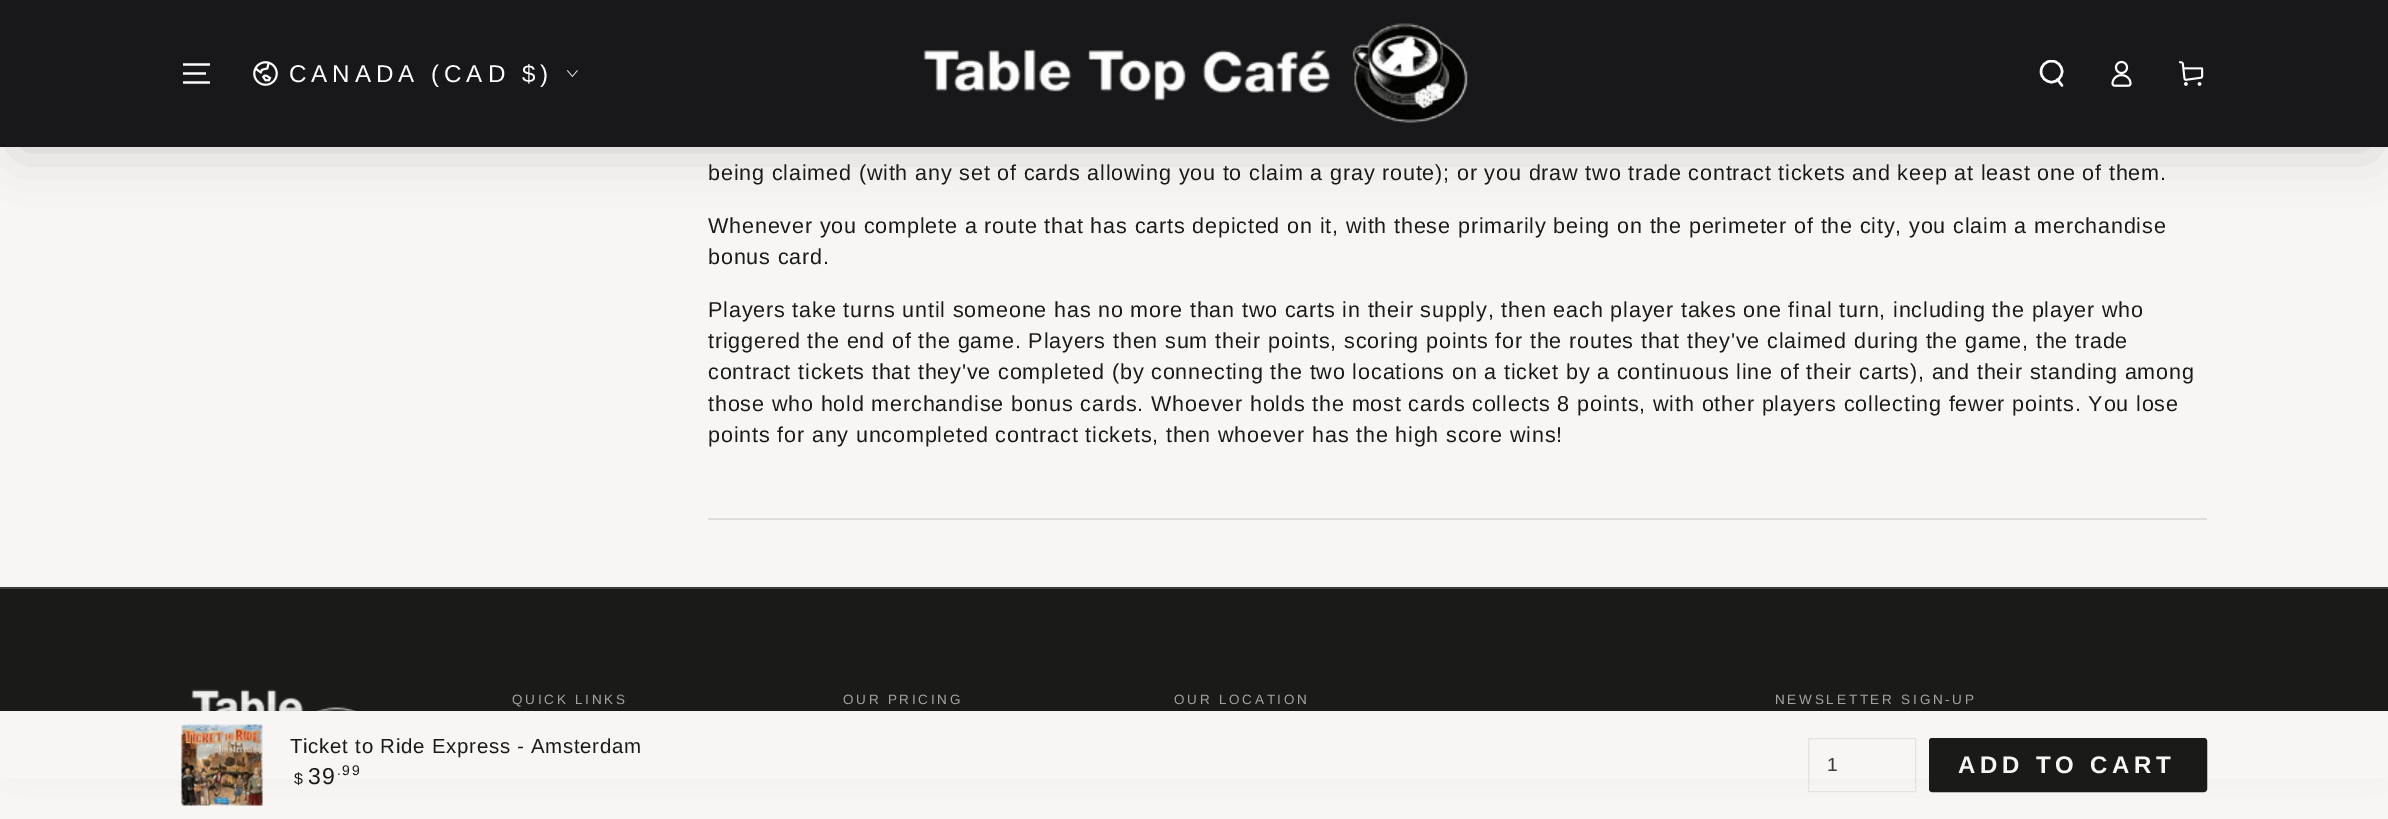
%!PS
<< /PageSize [2388 819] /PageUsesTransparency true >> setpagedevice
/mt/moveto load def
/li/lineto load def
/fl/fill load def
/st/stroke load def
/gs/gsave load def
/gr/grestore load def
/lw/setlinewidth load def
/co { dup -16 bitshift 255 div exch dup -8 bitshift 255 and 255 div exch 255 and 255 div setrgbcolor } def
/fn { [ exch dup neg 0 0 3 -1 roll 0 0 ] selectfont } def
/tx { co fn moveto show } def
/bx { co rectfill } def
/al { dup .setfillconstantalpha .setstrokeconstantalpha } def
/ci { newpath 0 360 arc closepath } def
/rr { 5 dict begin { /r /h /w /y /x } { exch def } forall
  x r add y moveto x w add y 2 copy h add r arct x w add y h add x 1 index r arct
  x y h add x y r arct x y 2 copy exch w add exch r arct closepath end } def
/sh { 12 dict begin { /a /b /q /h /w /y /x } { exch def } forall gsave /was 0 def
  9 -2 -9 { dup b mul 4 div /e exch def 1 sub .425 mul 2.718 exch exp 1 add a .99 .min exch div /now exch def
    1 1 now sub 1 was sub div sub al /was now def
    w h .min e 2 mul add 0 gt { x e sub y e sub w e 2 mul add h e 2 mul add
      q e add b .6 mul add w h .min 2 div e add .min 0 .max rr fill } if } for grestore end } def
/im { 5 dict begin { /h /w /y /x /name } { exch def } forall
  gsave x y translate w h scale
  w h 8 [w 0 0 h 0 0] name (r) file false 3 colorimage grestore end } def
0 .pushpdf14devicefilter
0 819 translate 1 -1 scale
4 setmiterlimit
0 0 2388 819 16#F7F6F4 bx
16#1A1B18 co
21 120 2348 27 13.5 27 .2 sh
0 0 2388 147 16#18181A bx
(media/1.raw) 923 23 545 100 im
16#FFFFFF co
2.2 lw
183 82.5 mt 210 82.5 li 183 73.5 mt 206 73.5 li 183 64.5 mt 210 64.5 li st
(media/2.raw) 253 61 25 25 im
(media/3.raw) 567 70 11 7 im
gs
2039 60 27 27 rectclip
2.4 lw
2051.5 71.5 10.5 ci st
gr
2.4 lw
1 setlinecap
2057.5 79.5 mt 2062 85.5 li st
(media/4.raw) 2111 60 21 27 im
(media/5.raw) 2179 61 25 25 im
708 518 1499 2 16#DFDEDC bx
0 589 2388 122 16#1A1B18 bx
(media/7.raw) 191 689 166 22 im
21 711 2348 27 13.5 27 .2 sh
0 711 2388 68 16#F7F6F4 bx
(media/6.raw) 181 724 82 82 im
16#E3E2E0 co
1 lw
0 setlinecap
1808.5 738.5 107 53 rectstroke
16#1A1B18 co
1930.5 739.5 275 51 1.5 rr gs fl gr
3 lw
st
0 587 2388 2 16#3D3E39 bx
/LiberationSans-Regular 24.25 fn
16#FFFFFF co
289 82 mt 4.9 0 (CANADA \(CAD $\)) ashow
/LiberationSans-Regular 21.6 fn
16#1A1B18 co
708 180 mt .81 0 (being claimed \(with any set of cards allowing you to claim a gray route\); or you draw two trade contract tickets and keep at least one of them.) ashow
708 233 mt .81 0 (Whenever you complete a route that has carts depicted on it, with these primarily being on the perimeter of the city, you claim a merchandise) ashow
708 264 mt .81 0 (bonus card.) ashow
708 317 mt .81 0 (Players take turns until someone has no more than two carts in their supply, then each player takes one final turn, including the player who) ashow
708 348 mt .81 0 (triggered the end of the game. Players then sum their points, scoring points for the routes that they've claimed during the game, the trade) ashow
708 379 mt .81 0 (contract tickets that they've completed \(by connecting the two locations on a ticket by a continuous line of their carts\), and their standing among) ashow
708 411 mt .81 0 (those who hold merchandise bonus cards. Whoever holds the most cards collects 8 points, with other players collecting fewer points. You lose) ashow
708 442 mt .81 0 (points for any uncompleted contract tickets, then whoever has the high score wins!) ashow
/LiberationSans-Regular 20.4 fn
290 753 mt .75 0 (Ticket to Ride Express - Amsterdam) ashow
/LiberationSans-Regular 16 fn
294 784 mt 1.5 0 ($) ashow
/LiberationSans-Regular 23 fn
308 784 mt 1.5 0 (39) ashow
/LiberationSans-Regular 14 fn
337 775 mt 1.5 0 (.99) ashow
(1) 1827 771 /LiberationSans-Regular 19 16#3B3C39 tx
/LiberationSans-Bold 24 fn
16#F7F6F4 co
1958 773 mt 4.75 0 (ADD TO CART) ashow
/LiberationSans-Regular 13.5 fn
16#A2A2A2 co
512 704 mt 2.75 0 (QUICK LINKS) ashow
843 704 mt 2.75 0 (OUR PRICING) ashow
1174 704 mt 2.75 0 (OUR LOCATION) ashow
1775 704 mt 2.75 0 (NEWSLETTER SIGN-UP) ashow
.poppdf14devicefilter showpage
